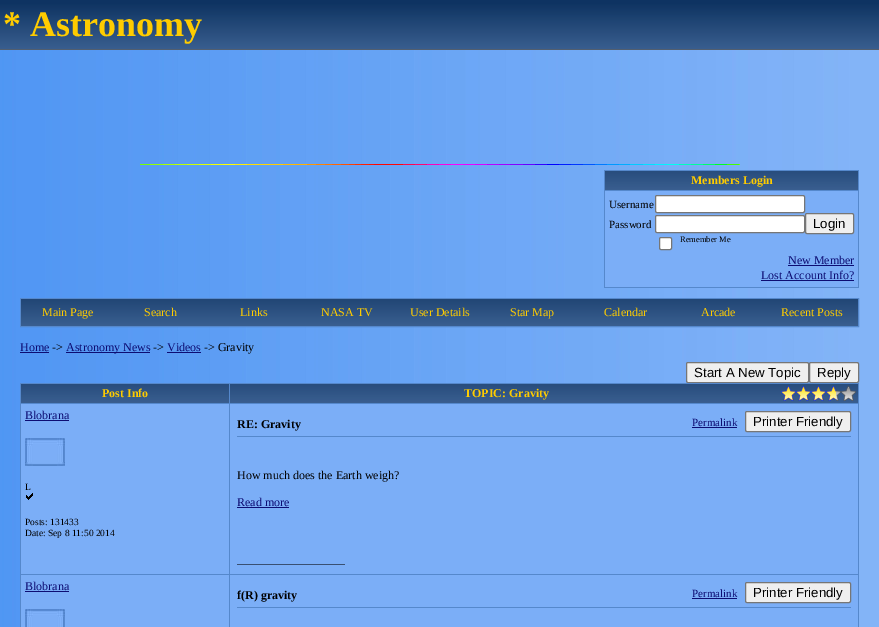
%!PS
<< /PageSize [879 627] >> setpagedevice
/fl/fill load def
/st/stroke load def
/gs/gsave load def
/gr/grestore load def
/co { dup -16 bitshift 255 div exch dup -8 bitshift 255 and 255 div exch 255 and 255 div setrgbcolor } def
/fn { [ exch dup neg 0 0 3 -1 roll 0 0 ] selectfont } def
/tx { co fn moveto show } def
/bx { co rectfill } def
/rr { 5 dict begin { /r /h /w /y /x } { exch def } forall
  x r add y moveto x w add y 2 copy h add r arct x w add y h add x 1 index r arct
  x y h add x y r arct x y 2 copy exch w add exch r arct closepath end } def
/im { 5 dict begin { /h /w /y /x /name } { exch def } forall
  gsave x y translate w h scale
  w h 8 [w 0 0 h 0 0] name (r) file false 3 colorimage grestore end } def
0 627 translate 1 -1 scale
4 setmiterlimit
0 0 879 627 16#FFFFFF bx
(media/1.raw) 0 50 879 577 im
(media/2.raw) 0 0 879 49 im
0 49 879 1 16#525E6E bx
(media/3.raw) 140 164 600 1 im
604 170 255 1 16#5588CC bx
858 170 1 118 16#5588CC bx
604 287 255 1 16#5588CC bx
604 170 1 118 16#5588CC bx
(media/4.raw) 605 171 253 19 im
604 190 255 1 16#5588CC bx
605 191 253 96 16#7BAEF7 bx
16#FFFFFF co
655.5 195.5 149 17 1.5 rr gs fl gr
16#767676 co
st
16#FFFFFF co
655.5 215.5 149 17 1.5 rr gs fl gr
16#767676 co
st
16#EFEFEF co
805.5 213.5 48 20 1.5 rr gs fl gr
16#767676 co
st
16#FFFFFF co
659.5 237.5 12 12 1.5 rr gs fl gr
16#767676 co
st
788 265 66 1 16#0D0D73 bx
761 280 93 1 16#0D0D73 bx
16#5588CC co
20.5 298.5 838 28 rectstroke
(media/5.raw) 21 299 93 27 im
(media/5.raw) 114 299 93 27 im
(media/5.raw) 207 299 93 27 im
(media/5.raw) 300 299 93 27 im
(media/5.raw) 393 299 93 27 im
(media/5.raw) 486 299 93 27 im
(media/5.raw) 579 299 93 27 im
(media/5.raw) 672 299 93 27 im
(media/5.raw) 765 299 93 27 im
20 352 29 1 16#0D0D73 bx
66 352 84 1 16#0D0D73 bx
167 352 34 1 16#0D0D73 bx
16#EFEFEF co
686.5 362.5 122 20 1.5 rr gs fl gr
16#767676 co
st
16#EFEFEF co
809.5 362.5 49 20 1.5 rr gs fl gr
16#767676 co
st
20 383 839 1 16#5588CC bx
858 383 1 244 16#5588CC bx
20 383 1 244 16#5588CC bx
(media/6.raw) 21 384 208 19 im
229 403 630 1 16#5588CC bx
229 574 630 1 16#5588CC bx
229 574 1 53 16#5588CC bx
20 574 210 1 16#5588CC bx
229 403 1 172 16#5588CC bx
20 403 210 1 16#5588CC bx
229 383 1 21 16#5588CC bx
(media/7.raw) 230 384 628 19 im
(media/8.raw) 781 386 75 15 im
(media/9.raw) 781 386 55 15 im
21 404 208 170 16#7BAEF7 bx
25 420 44 1 16#0D0D73 bx
(media/10.raw) 25 438 40 28 im
(media/11.raw) 26 493 7 7 im
230 404 628 170 16#7BAEF7 bx
692 427 45 1 16#0D0D73 bx
16#EFEFEF co
745.5 411.5 105 20 1.5 rr gs fl gr
16#767676 co
st
237 436 614 1 16#5588CC bx
237 507 52 1 16#0D0D73 bx
21 575 208 52 16#7BAEF7 bx
25 591 44 1 16#0D0D73 bx
(media/12.raw) 25 609 40 18 im
230 575 628 52 16#7BAEF7 bx
692 598 45 1 16#0D0D73 bx
16#EFEFEF co
745.5 582.5 105 20 1.5 rr gs fl gr
16#767676 co
st
237 607 614 1 16#5588CC bx
(* Astronomy) 3 36 /LiberationSerif-Bold 36 16#FFCC00 tx
(Members Login) 691 184 /LiberationSerif-Bold 12 16#FFCC00 tx
(Username) 609 208 /LiberationSerif-Regular 11 16#000000 tx
(Password) 609 228 /LiberationSerif-Regular 11 16#000000 tx
(Login) 813 228 /LiberationSans-Regular 13.25 16#000000 tx
(Remember Me) 680 242 /LiberationSerif-Regular 8.5 16#000000 tx
(New Member) 788 264 /LiberationSerif-Regular 12 16#0D0D73 tx
(Lost Account Info?) 761 279 /LiberationSerif-Regular 12 16#0D0D73 tx
(Main Page) 42 316 /LiberationSerif-Regular 12 16#FFCC00 tx
(Search) 144 316 /LiberationSerif-Regular 12 16#FFCC00 tx
(Links) 240 316 /LiberationSerif-Regular 12 16#FFCC00 tx
(NASA TV) 321 316 /LiberationSerif-Regular 12 16#FFCC00 tx
(User Details) 410 316 /LiberationSerif-Regular 12 16#FFCC00 tx
(Star Map) 510 316 /LiberationSerif-Regular 12 16#FFCC00 tx
(Calendar) 604 316 /LiberationSerif-Regular 12 16#FFCC00 tx
(Arcade) 701 316 /LiberationSerif-Regular 12 16#FFCC00 tx
(Recent Posts) 781 316 /LiberationSerif-Regular 12 16#FFCC00 tx
(Home) 20 351 /LiberationSerif-Regular 12 16#0D0D73 tx
(->) 52 351 /LiberationSerif-Regular 12 16#000000 tx
(Astronomy News) 66 351 /LiberationSerif-Regular 12 16#0D0D73 tx
(->) 153 351 /LiberationSerif-Regular 12 16#000000 tx
(Videos) 167 351 /LiberationSerif-Regular 12 16#0D0D73 tx
(-> Gravity) 204 351 /LiberationSerif-Regular 12 16#000000 tx
(Start A New Topic) 694 377 /LiberationSans-Regular 13.25 16#000000 tx
(Reply) 817 377 /LiberationSans-Regular 13.25 16#000000 tx
(Post Info) 102 397 /LiberationSerif-Bold 12 16#FFCC00 tx
(TOPIC: Gravity) 464 397 /LiberationSerif-Bold 12 16#FFCC00 tx
(Blobrana) 25 419 /LiberationSerif-Regular 12 16#0D0D73 tx
(L) 25 490 /LiberationSerif-Regular 9.5 16#000000 tx
(Posts: 131433) 25 525 /LiberationSerif-Regular 9.5 16#000000 tx
(Date: Sep 8 11:50 2014) 25 536 /LiberationSerif-Regular 9.5 16#000000 tx
(RE: Gravity) 237 428 /LiberationSerif-Bold 12 16#000000 tx
(Permalink) 692 426 /LiberationSerif-Regular 11 16#0D0D73 tx
(Printer Friendly) 753 426 /LiberationSans-Regular 13.25 16#000000 tx
(How much does the Earth weigh?) 237 479 /LiberationSerif-Regular 12 16#000000 tx
(Read more) 237 506 /LiberationSerif-Regular 12 16#0D0D73 tx
(__________________) 237 563 /LiberationSerif-Regular 12 16#000000 tx
(Blobrana) 25 590 /LiberationSerif-Regular 12 16#0D0D73 tx
(f\(R\) gravity) 237 599 /LiberationSerif-Bold 12 16#000000 tx
(Permalink) 692 597 /LiberationSerif-Regular 11 16#0D0D73 tx
(Printer Friendly) 753 597 /LiberationSans-Regular 13.25 16#000000 tx
showpage
